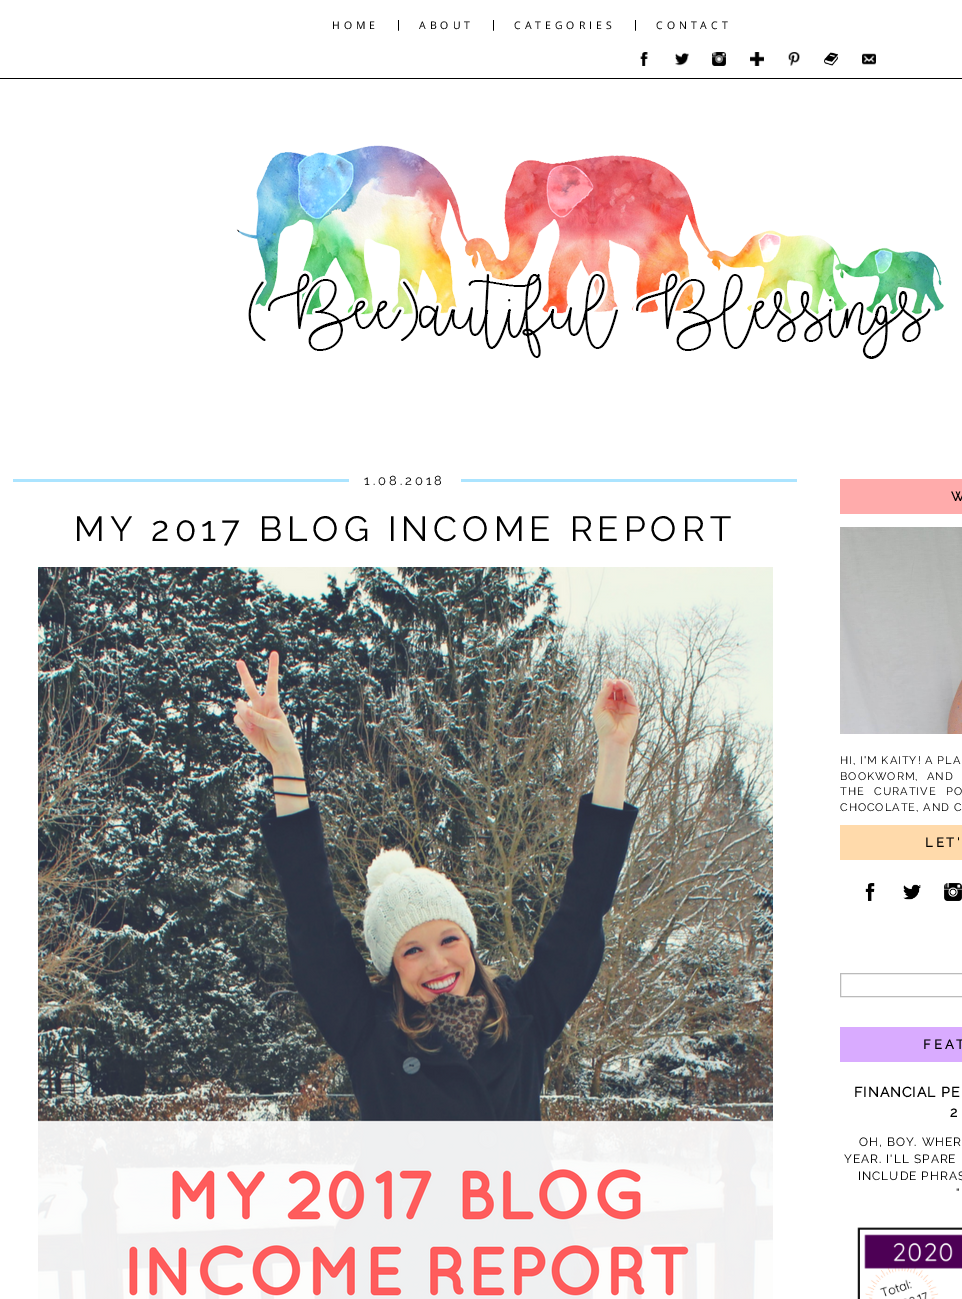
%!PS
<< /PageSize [962 1299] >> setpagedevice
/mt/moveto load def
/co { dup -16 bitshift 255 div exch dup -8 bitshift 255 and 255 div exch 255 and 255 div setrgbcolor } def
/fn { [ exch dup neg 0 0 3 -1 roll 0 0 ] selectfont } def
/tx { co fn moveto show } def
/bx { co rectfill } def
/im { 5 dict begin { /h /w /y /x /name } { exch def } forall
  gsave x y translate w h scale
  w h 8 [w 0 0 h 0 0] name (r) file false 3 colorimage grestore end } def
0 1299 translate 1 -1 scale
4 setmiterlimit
0 0 962 1299 16#FFFFFF bx
0 78 962 1 16#000000 bx
(media/1.raw) 640 52 8 14 im
(media/2.raw) 675 52 14 14 im
(media/3.raw) 712 52 14 14 im
(media/4.raw) 750 52 14 14 im
(media/5.raw) 788 52 12 14 im
(media/6.raw) 824 52 14 14 im
(media/7.raw) 862 53 14 12 im
(media/8.raw) 236 145 708 214 im
13 479 784 3 16#ABE4FF bx
349 479 112 3 16#FFFFFF bx
(media/9.raw) 38 567 735 732 im
840 479 122 35 16#FFABAB bx
(media/10.raw) 840 527 122 207 im
840 825 122 35 16#FFDAAB bx
(media/11.raw) 865 883 10 18 im
(media/12.raw) 903 884 18 16 im
(media/13.raw) 944 883 18 18 im
16#BBBBBB co
840.5 973.5 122 23 rectstroke
840 1027 122 35 16#D9ABFF bx
(media/14.raw) 857 1227 105 72 im
/OpenSans-Regular 10.5 fn
16#000000 co
332 29 mt 4 0 (HOME) ashow
(|) 397 29 /PTSans-Regular 13 16#000000 tx
/OpenSans-Regular 10.5 fn
419 29 mt 4 0 (ABOUT) ashow
(|) 492 29 /PTSans-Regular 13 16#000000 tx
/OpenSans-Regular 10.5 fn
514 29 mt 4 0 (CATEGORIES) ashow
(|) 634 29 /PTSans-Regular 13 16#000000 tx
/OpenSans-Regular 10.5 fn
656 29 mt 4 0 (CONTACT) ashow
/Raleway-Thin 13 fn
364 485 mt 3 0 (1.08.2018) ashow
/Raleway-Thin 35 fn
74 541 mt 5 0 (MY 2017 BLOG INCOME REPORT) ashow
/Raleway-Bold 13 fn
951 501 mt 3 0 (W) ashow
/Raleway-Thin 11 fn
840 764 mt 1 0 (HI, I'M KAITY! A PLA) ashow
840 780 mt 4 0 32 1 0 (BOOKWORM, AND) awidthshow
840 795 mt 6 0 32 1 0 (THE CURATIVE PO) awidthshow
840 811 mt 1 0 (CHOCOLATE, AND C) ashow
/Raleway-Bold 13 fn
925 847 mt 3 0 (LET') ashow
923 1049 mt 3 0 (FEAT) ashow
/Raleway-Bold 14 fn
854 1097 mt 1 0 (FINANCIAL PE) ashow
950 1117 mt 1 0 (2) ashow
/Raleway-Thin 12 fn
859 1146 mt 1 0 (OH, BOY. WHER) ashow
844 1163 mt 1 0 (YEAR. I'LL SPARE) ashow
858 1180 mt 1 0 (INCLUDE PHRAS) ashow
956 1197 mt 1 0 (") ashow
showpage
